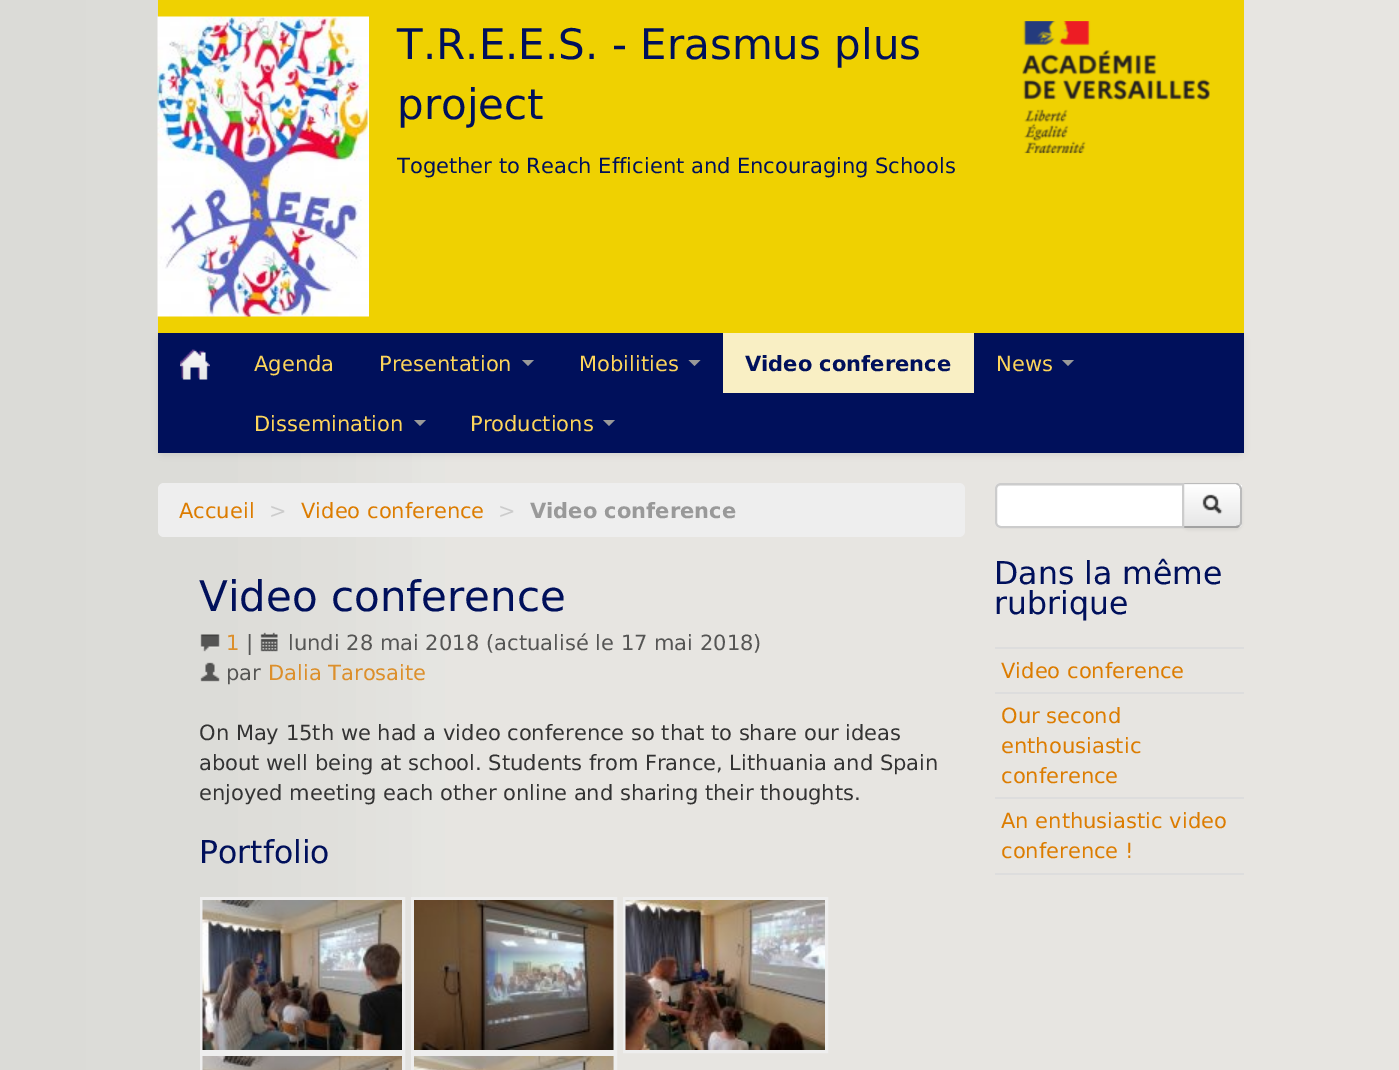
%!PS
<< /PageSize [1399 1070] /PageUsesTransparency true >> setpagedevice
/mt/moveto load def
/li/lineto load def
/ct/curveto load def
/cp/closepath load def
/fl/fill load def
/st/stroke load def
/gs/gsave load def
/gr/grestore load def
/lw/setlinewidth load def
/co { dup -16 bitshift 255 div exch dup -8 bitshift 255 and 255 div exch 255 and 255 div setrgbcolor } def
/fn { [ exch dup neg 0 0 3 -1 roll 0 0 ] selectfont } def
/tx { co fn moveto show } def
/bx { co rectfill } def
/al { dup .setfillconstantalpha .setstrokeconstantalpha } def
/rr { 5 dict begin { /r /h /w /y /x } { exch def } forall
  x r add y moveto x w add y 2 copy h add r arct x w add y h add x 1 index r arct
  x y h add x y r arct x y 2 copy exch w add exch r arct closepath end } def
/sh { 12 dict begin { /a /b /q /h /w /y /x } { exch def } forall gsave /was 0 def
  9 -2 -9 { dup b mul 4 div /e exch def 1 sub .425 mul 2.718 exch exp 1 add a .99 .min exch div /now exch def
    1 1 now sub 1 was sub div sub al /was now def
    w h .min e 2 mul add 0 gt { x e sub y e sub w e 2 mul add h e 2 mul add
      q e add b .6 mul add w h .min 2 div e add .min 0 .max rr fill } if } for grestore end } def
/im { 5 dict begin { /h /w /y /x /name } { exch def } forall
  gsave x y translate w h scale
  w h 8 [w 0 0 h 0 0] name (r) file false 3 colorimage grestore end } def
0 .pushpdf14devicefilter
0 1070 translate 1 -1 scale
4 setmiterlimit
0 0 1399 1070 16#BFBDB1 bx
(media/1.raw) 0 0 1399 1070 im
158 333 1086 120 16#00105B bx
gs
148 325 mt 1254 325 li 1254 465 li 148 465 li cp 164 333 mt 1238 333 li 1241.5 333 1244 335.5 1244 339 ct 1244 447 li 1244 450.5 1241.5 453 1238 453 ct 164 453 li 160.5 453 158 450.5 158 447 ct 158 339 li 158 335.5 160.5 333 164 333 ct cp eoclip newpath
16#000000 co
158 335 1086 120 6 3 .07 sh
gr
158 0 1086 333 16#EFD101 bx
(media/2.raw) 157 16 212 301 im
(media/3.raw) 1022 21 188 133 im
(media/4.raw) 180 349 30 31 im
16#999999 co
522 360 mt 534 360 li 528 366 li cp fl
688.5 360 mt 700.5 360 li 694.5 366 li cp fl
723 333 251 60 16#F9EFC4 bx
16#999999 co
1062 360 mt 1074 360 li 1068 366 li cp fl
414 420 mt 426 420 li 420 426 li cp fl
603 420 mt 615 420 li 609 426 li cp fl
16#EEEEEE co
158 483 807 54 6 rr fl
(media/5.raw) 200 634 20 18 im
(media/6.raw) 260 632 18 20 im
(media/7.raw) 200 662 20 20 im
3 lw
201.5 898.5 202 153 rectstroke
412.5 898.5 203 153 rectstroke
624.5 898.5 202 153 rectstroke
(media/8.raw) 202 900 200 150 im
(media/9.raw) 414 900 200 150 im
(media/10.raw) 625 900 200 150 im
201.5 1054.5 202 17 rectstroke
412.5 1054.5 203 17 rectstroke
(media/11.raw) 202 1056 200 14 im
(media/12.raw) 414 1056 200 14 im
16#000000 co
1182 485 60 45 6 1.5 .05 sh
16#F5F5F5 co
1182 483 mt 1236 483 li 1239.5 483 1242 485.5 1242 489 ct 1242 522 li 1242 525.5 1239.5 528 1236 528 ct 1182 528 li cp fl
gs
1182 483 mt 1236 483 li 1239.5 483 1242 485.5 1242 489 ct 1242 522 li 1242 525.5 1239.5 528 1236 528 ct 1182 528 li cp clip newpath
gs 1184 485 mt 1242 485 li 1242 527 li 1184 527 li cp clip newpath
<< /ShadingType 2 /ColorSpace /DeviceRGB /Coords [1212 485 1212 527] /Extend [true true] /Function << /FunctionType 2 /Domain [0 1] /C0 [1 1 1] /C1 [.902 .902 .902] /N 1 >> >> shfill gr
gr
0.2 al
16#FFFFFF co
1184 486 mt 1219 486 li 1241 486 1240 482 1240 501 ct 1240 525 li 1241 524 1241 523 1241 522 ct 1241 490 li 1241 487 1239 485 1236 485 ct 1184 485 li cp fl
1 al
16#BBBBBB co
1182 483 mt 1184 485 li 1184 484 li 1236 484 li 1239 486 li 1240 485 li 1239 484 1238 483 1236 483 ct cp fl
1242 522 mt 1242 489 li 1242 488 1241 486 1240 485 ct 1239 486 li 1240 489 li 1240 522 li 1240 523 1240 524 1239 525 ct 1240 526 li 1241 525 1242 524 1242 522 ct cp fl
16#A2A2A2 co
1236 528 mt 1238 528 1239 527 1240 526 ct 1239 525 li 1236 526 li 1184 526 li 1182 528 li cp fl
16#FFFFFF co
1001 483 mt 1184 483 li 1184 528 li 1001 528 li 997.5 528 995 525.5 995 522 ct 995 489 li 995 485.5 997.5 483 1001 483 ct cp fl
16#ECECEC co
1000 486 mt 1182 486 li 1182 485 li 1001 485 li 998 485 996 487 996 490 ct 996 488 998 486 1000 486 ct cp fl
16#CCCCCC co
2 lw
1001 484 mt 1183 484 li 1183 527 li 1001 527 li 998 527 996 525 996 522 ct 996 489 li 996 486 998 484 1001 484 ct cp st
(media/13.raw) 1202 494 21 21 im
995 647 249 2 16#DDDDDD bx
995 692 249 2 16#DDDDDD bx
995 797 249 2 16#DDDDDD bx
995 873 249 2 16#DDDDDD bx
(T.R.E.E.S. - Erasmus plus) 397 59 /DejaVuSans-Regular 42 16#00105B tx
(project) 397 119 /DejaVuSans-Regular 42 16#00105B tx
(Together to Reach Efficient and Encouraging Schools) 397 173 /DejaVuSans-Regular 21 16#00105B tx
(Agenda) 254 371 /DejaVuSans-Regular 21 16#FDD55B tx
(Presentation) 379 371 /DejaVuSans-Regular 21 16#FDD55B tx
(Mobilities) 579 371 /DejaVuSans-Regular 21 16#FDD55B tx
(Video conference) 745 371 /DejaVuSans-Bold 21 16#00105B tx
(News) 996 371 /DejaVuSans-Regular 21 16#FDD55B tx
(Dissemination) 254 431 /DejaVuSans-Regular 21 16#FDD55B tx
(Productions) 470 431 /DejaVuSans-Regular 21 16#FDD55B tx
(Accueil) 179 518 /DejaVuSans-Regular 21 16#DC7C00 tx
(>) 269 518 /DejaVuSans-Regular 21 16#CCCCCC tx
(Video conference) 301 518 /DejaVuSans-Regular 21 16#DC7C00 tx
(>) 498 518 /DejaVuSans-Regular 21 16#CCCCCC tx
(Video conference) 530 518 /DejaVuSans-Bold 21 16#999999 tx
(Video conference) 199 611 /DejaVuSans-Regular 42 16#00105B tx
(1) 226 650 /DejaVuSans-Regular 21 16#DC8F2B tx
(|) 246 650 /DejaVuSans-Regular 21 16#555554 tx
(lundi 28 mai 2018) 288 650 /DejaVuSans-Regular 21 16#555554 tx
(\(actualisé le 17 mai 2018\)) 486 650 /DejaVuSans-Regular 21 16#555554 tx
(par) 226 680 /DejaVuSans-Regular 21 16#555554 tx
(Dalia Tarosaite) 268 680 /DejaVuSans-Regular 21 16#DC8F2B tx
(On May 15th we had a video conference so that to share our ideas) 199 740 /DejaVuSans-Regular 21 16#333333 tx
(about well being at school. Students from France, Lithuania and Spain) 199 770 /DejaVuSans-Regular 21 16#333333 tx
(enjoyed meeting each other online and sharing their thoughts.) 199 800 /DejaVuSans-Regular 21 16#333333 tx
(Portfolio) 199 863 /DejaVuSans-Regular 31.5 16#00105B tx
(Dans la même) 994 584 /DejaVuSans-Regular 31.5 16#00105B tx
(rubrique) 994 614 /DejaVuSans-Regular 31.5 16#00105B tx
(Video conference) 1001 678 /DejaVuSans-Regular 21 16#DC7C00 tx
(Our second) 1001 723 /DejaVuSans-Regular 21 16#DC7C00 tx
(enthousiastic) 1001 753 /DejaVuSans-Regular 21 16#DC7C00 tx
(conference) 1001 783 /DejaVuSans-Regular 21 16#DC7C00 tx
(An enthusiastic video) 1001 828 /DejaVuSans-Regular 21 16#DC7C00 tx
(conference !) 1001 858 /DejaVuSans-Regular 21 16#DC7C00 tx
.poppdf14devicefilter showpage
